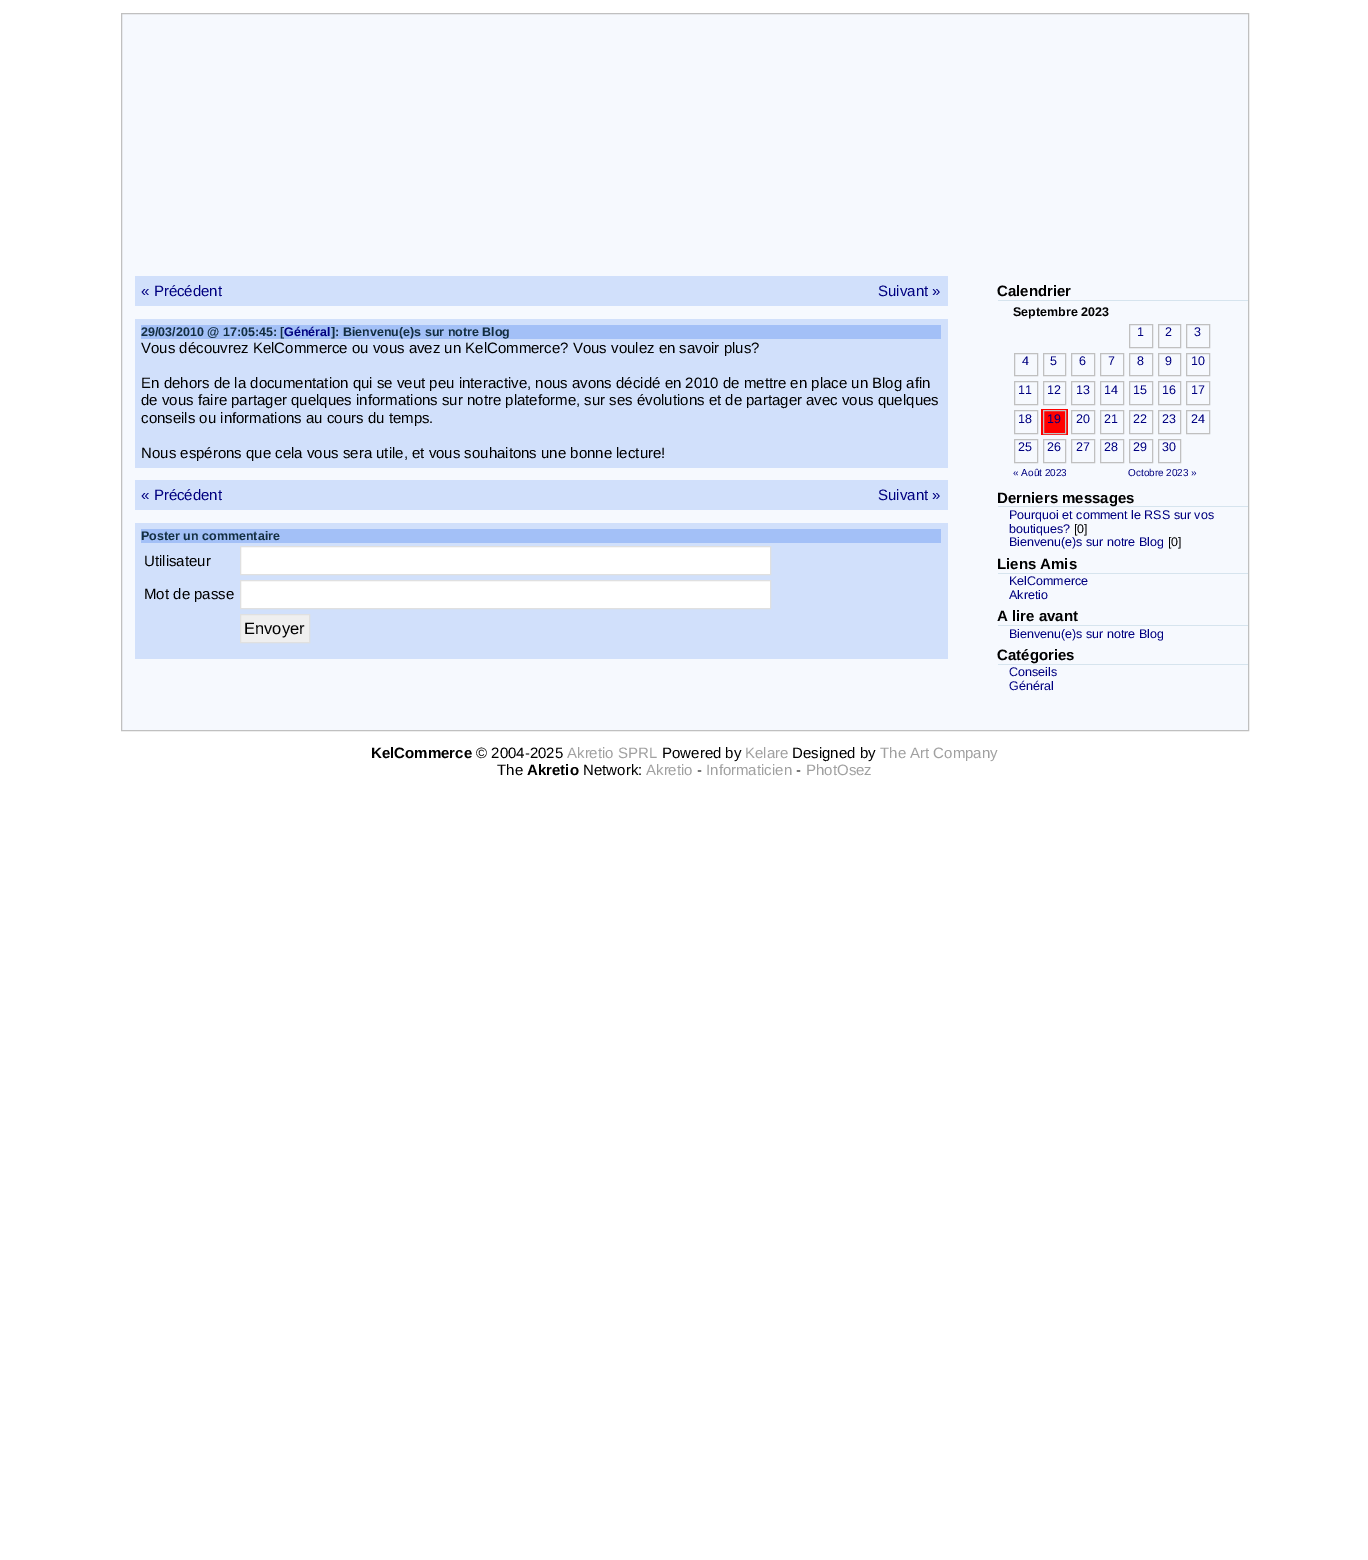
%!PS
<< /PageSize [1368 1560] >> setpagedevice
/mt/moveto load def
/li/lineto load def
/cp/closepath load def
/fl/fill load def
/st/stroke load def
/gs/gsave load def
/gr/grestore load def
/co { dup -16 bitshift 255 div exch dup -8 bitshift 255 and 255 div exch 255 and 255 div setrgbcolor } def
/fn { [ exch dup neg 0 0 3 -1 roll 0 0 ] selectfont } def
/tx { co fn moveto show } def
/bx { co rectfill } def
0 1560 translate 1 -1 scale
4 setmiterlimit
0 0 1368 1560 16#FFFFFF bx
16#F6F9FE co
121.5 13.5 mt 1248.5 13.5 li 1248.5 730.5 li 121.5 730.5 li cp gs fl gr
16#C0C0C0 co
st
135 276 813 30 16#D1E0FB bx
135 319 813 149 16#D1E0FB bx
141 325 800 14 16#A3C0F7 bx
135 480 813 30 16#D1E0FB bx
135 523 813 136 16#D1E0FB bx
141 529 800 14 16#A3C0F7 bx
16#FFFFFF co
240.5 546.5 mt 770.5 546.5 li 770.5 574.5 li 240.5 574.5 li cp gs fl gr
16#E0E0E0 co
st
16#FFFFFF co
240.5 580.5 mt 770.5 580.5 li 770.5 608.5 li 240.5 608.5 li cp gs fl gr
16#E0E0E0 co
st
16#EFEFEF co
240.5 614.5 mt 309.5 614.5 li 309.5 642.5 li 240.5 642.5 li cp gs fl gr
16#E0E0E0 co
st
998 300 250 1 16#D6E4EE bx
16#C0C0C0 co
1129.5 324.5 23 23 rectstroke
1158.5 324.5 22 23 rectstroke
1186.5 324.5 23 23 rectstroke
1014.5 353.5 23 22 rectstroke
1043.5 353.5 22 22 rectstroke
1071.5 353.5 23 22 rectstroke
1100.5 353.5 23 22 rectstroke
1129.5 353.5 23 22 rectstroke
1158.5 353.5 22 22 rectstroke
1186.5 353.5 23 22 rectstroke
1014.5 381.5 23 23 rectstroke
1043.5 381.5 22 23 rectstroke
1071.5 381.5 23 23 rectstroke
1100.5 381.5 23 23 rectstroke
1129.5 381.5 23 23 rectstroke
1158.5 381.5 22 23 rectstroke
1186.5 381.5 23 23 rectstroke
1014.5 410.5 23 23 rectstroke
1041 409 27 26 16#FF0000 bx
16#C0C0C0 co
1043.5 410.5 22 23 rectstroke
1071.5 410.5 23 23 rectstroke
1100.5 410.5 23 23 rectstroke
1129.5 410.5 23 23 rectstroke
1158.5 410.5 22 23 rectstroke
1186.5 410.5 23 23 rectstroke
1014.5 439.5 23 23 rectstroke
1043.5 439.5 22 23 rectstroke
1071.5 439.5 23 23 rectstroke
1100.5 439.5 23 23 rectstroke
1129.5 439.5 23 23 rectstroke
1158.5 439.5 22 23 rectstroke
998 506 250 1 16#D6E4EE bx
998 573 250 1 16#D6E4EE bx
998 625 250 1 16#D6E4EE bx
998 664 250 1 16#D6E4EE bx
(« Précédent) 141 296 /LiberationSans-Regular 15 16#000080 tx
(Suivant ») 878 296 /LiberationSans-Regular 15 16#000080 tx
(29/03/2010 @ 17:05:45: [) 141 336 /LiberationSans-Bold 12.5 16#132E41 tx
(Général) 284 336 /LiberationSans-Bold 12.5 16#000080 tx
(]: Bienvenu\(e\)s sur notre Blog) 331 336 /LiberationSans-Bold 12.5 16#132E41 tx
(Vous découvrez KelCommerce ou vous avez un KelCommerce? Vous voulez en savoir plus?) 141 353 /LiberationSans-Regular 15 16#000000 tx
(En dehors de la documentation qui se veut peu interactive, nous avons décidé en 2010 de mettre en place un Blog afin) 141 388 /LiberationSans-Regular 15 16#000000 tx
(de vous faire partager quelques informations sur notre plateforme, sur ses évolutions et de partager avec vous quelques) 141 405 /LiberationSans-Regular 15 16#000000 tx
(conseils ou informations au cours du temps.) 141 423 /LiberationSans-Regular 15 16#000000 tx
(Nous espérons que cela vous sera utile, et vous souhaitons une bonne lecture!) 141 458 /LiberationSans-Regular 15 16#000000 tx
(« Précédent) 141 500 /LiberationSans-Regular 15 16#000080 tx
(Suivant ») 878 500 /LiberationSans-Regular 15 16#000080 tx
(Poster un commentaire) 141 540 /LiberationSans-Bold 12.5 16#132E41 tx
(Utilisateur) 144 566 /LiberationSans-Regular 15 16#000000 tx
(Mot de passe) 144 599 /LiberationSans-Regular 15 16#000000 tx
(Envoyer) 244 634 /LiberationSans-Regular 16.5 16#000000 tx
(Calendrier) 997 296 /LiberationSans-Bold 15 16#000000 tx
(Septembre 2023) 1013 316 /LiberationSans-Bold 12.5 16#000000 tx
(1) 1137 336 /LiberationSans-Regular 12.5 16#000080 tx
(2) 1165 336 /LiberationSans-Regular 12.5 16#000080 tx
(3) 1194 336 /LiberationSans-Regular 12.5 16#000080 tx
(4) 1022 365 /LiberationSans-Regular 12.5 16#000080 tx
(5) 1050 365 /LiberationSans-Regular 12.5 16#000080 tx
(6) 1079 365 /LiberationSans-Regular 12.5 16#000080 tx
(7) 1108 365 /LiberationSans-Regular 12.5 16#000080 tx
(8) 1137 365 /LiberationSans-Regular 12.5 16#000080 tx
(9) 1165 365 /LiberationSans-Regular 12.5 16#000080 tx
(10) 1191 365 /LiberationSans-Regular 12.5 16#000080 tx
(11) 1018 394 /LiberationSans-Regular 12.5 16#000080 tx
(12) 1047 394 /LiberationSans-Regular 12.5 16#000080 tx
(13) 1076 394 /LiberationSans-Regular 12.5 16#000080 tx
(14) 1104 394 /LiberationSans-Regular 12.5 16#000080 tx
(15) 1133 394 /LiberationSans-Regular 12.5 16#000080 tx
(16) 1162 394 /LiberationSans-Regular 12.5 16#000080 tx
(17) 1191 394 /LiberationSans-Regular 12.5 16#000080 tx
(18) 1018 423 /LiberationSans-Regular 12.5 16#000080 tx
(19) 1047 423 /LiberationSans-Regular 12.5 16#000080 tx
(20) 1076 423 /LiberationSans-Regular 12.5 16#000080 tx
(21) 1104 423 /LiberationSans-Regular 12.5 16#000080 tx
(22) 1133 423 /LiberationSans-Regular 12.5 16#000080 tx
(23) 1162 423 /LiberationSans-Regular 12.5 16#000080 tx
(24) 1191 423 /LiberationSans-Regular 12.5 16#000080 tx
(25) 1018 451 /LiberationSans-Regular 12.5 16#000080 tx
(26) 1047 451 /LiberationSans-Regular 12.5 16#000080 tx
(27) 1076 451 /LiberationSans-Regular 12.5 16#000080 tx
(28) 1104 451 /LiberationSans-Regular 12.5 16#000080 tx
(29) 1133 451 /LiberationSans-Regular 12.5 16#000080 tx
(30) 1162 451 /LiberationSans-Regular 12.5 16#000080 tx
(« Août 2023) 1013 476 /LiberationSans-Regular 10 16#000080 tx
(Octobre 2023 ») 1128 476 /LiberationSans-Regular 10 16#000080 tx
(Derniers messages) 997 503 /LiberationSans-Bold 15 16#000000 tx
(Pourquoi et comment le RSS sur vos) 1009 519 /LiberationSans-Regular 12.5 16#000080 tx
(boutiques?) 1009 533 /LiberationSans-Regular 12.5 16#000080 tx
([0]) 1074 533 /LiberationSans-Regular 12.5 16#000000 tx
(Bienvenu\(e\)s sur notre Blog) 1009 546 /LiberationSans-Regular 12.5 16#000080 tx
([0]) 1168 546 /LiberationSans-Regular 12.5 16#000000 tx
(Liens Amis) 997 569 /LiberationSans-Bold 15 16#000000 tx
(KelCommerce) 1009 585 /LiberationSans-Regular 12.5 16#000080 tx
(Akretio) 1009 599 /LiberationSans-Regular 12.5 16#000080 tx
(A lire avant) 997 621 /LiberationSans-Bold 15 16#000000 tx
(Bienvenu\(e\)s sur notre Blog) 1009 638 /LiberationSans-Regular 12.5 16#000080 tx
(Catégories) 997 660 /LiberationSans-Bold 15 16#000000 tx
(Conseils) 1009 676 /LiberationSans-Regular 12.5 16#000080 tx
(Général) 1009 690 /LiberationSans-Regular 12.5 16#000080 tx
(KelCommerce) 371 758 /LiberationSans-Bold 15 16#000000 tx
(© 2004-2025) 476 758 /LiberationSans-Regular 15 16#000000 tx
(Akretio SPRL) 567 758 /LiberationSans-Regular 15 16#A0A0A0 tx
(Powered by) 662 758 /LiberationSans-Regular 15 16#000000 tx
(Kelare) 745 758 /LiberationSans-Regular 15 16#A0A0A0 tx
(Designed by) 792 758 /LiberationSans-Regular 15 16#000000 tx
(The Art Company) 880 758 /LiberationSans-Regular 15 16#A0A0A0 tx
(The) 497 775 /LiberationSans-Regular 15 16#000000 tx
(Akretio) 527 775 /LiberationSans-Bold 15 16#000000 tx
(Network:) 583 775 /LiberationSans-Regular 15 16#000000 tx
(Akretio) 646 775 /LiberationSans-Regular 15 16#A0A0A0 tx
(-) 697 775 /LiberationSans-Regular 15 16#000000 tx
(Informaticien) 706 775 /LiberationSans-Regular 15 16#A0A0A0 tx
(-) 796 775 /LiberationSans-Regular 15 16#000000 tx
(PhotOsez) 806 775 /LiberationSans-Regular 15 16#A0A0A0 tx
showpage
